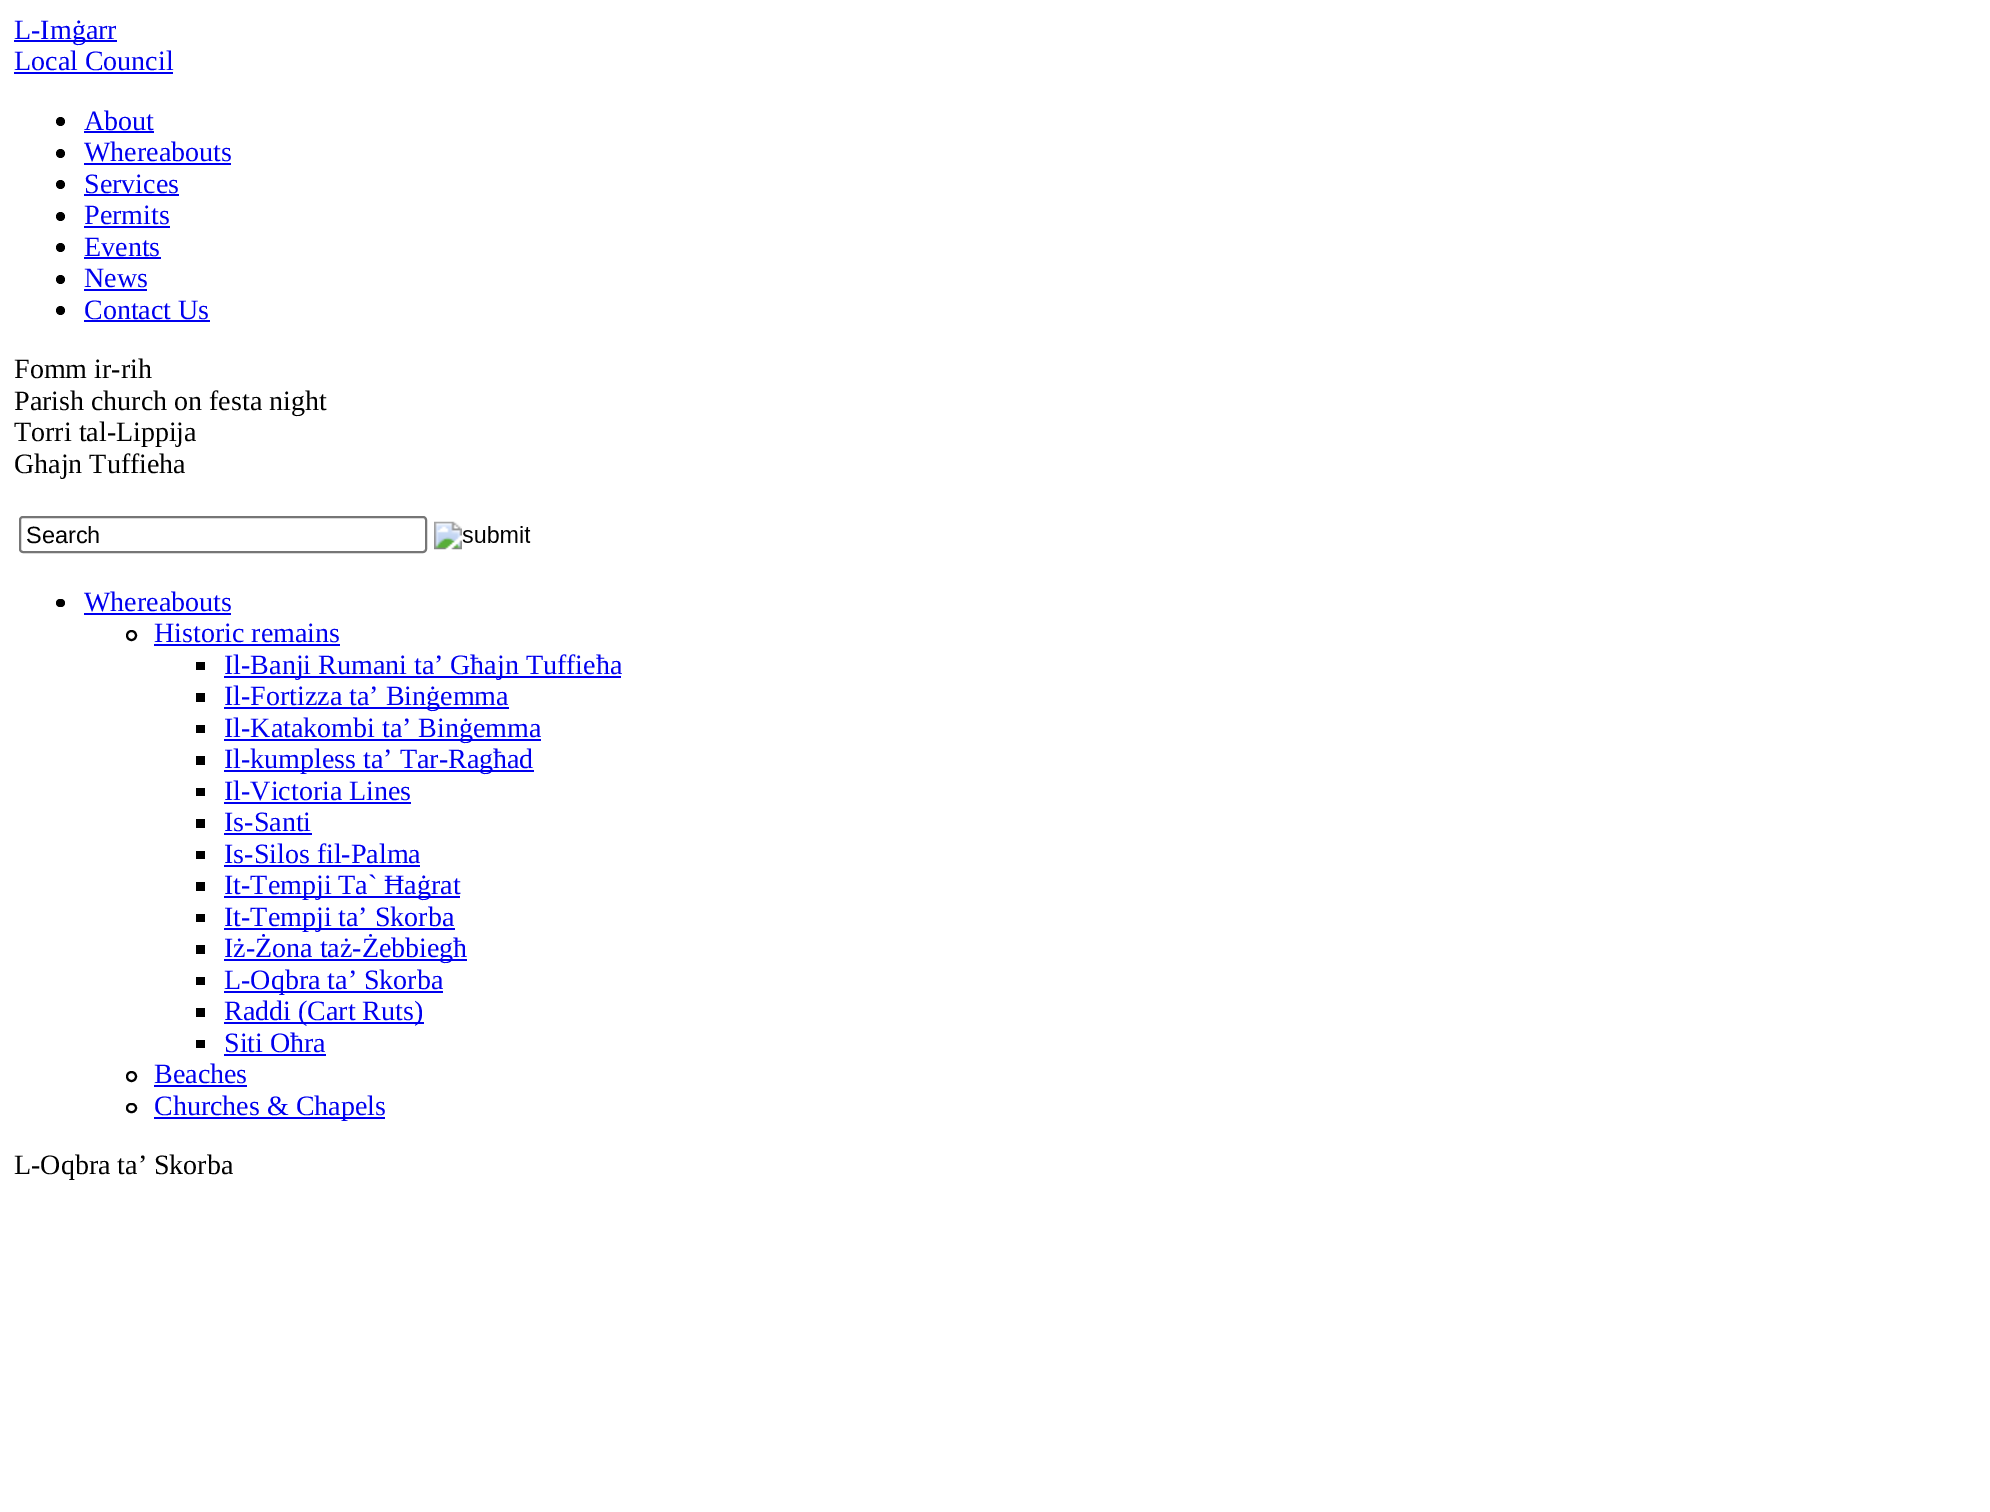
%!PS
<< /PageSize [1990 1512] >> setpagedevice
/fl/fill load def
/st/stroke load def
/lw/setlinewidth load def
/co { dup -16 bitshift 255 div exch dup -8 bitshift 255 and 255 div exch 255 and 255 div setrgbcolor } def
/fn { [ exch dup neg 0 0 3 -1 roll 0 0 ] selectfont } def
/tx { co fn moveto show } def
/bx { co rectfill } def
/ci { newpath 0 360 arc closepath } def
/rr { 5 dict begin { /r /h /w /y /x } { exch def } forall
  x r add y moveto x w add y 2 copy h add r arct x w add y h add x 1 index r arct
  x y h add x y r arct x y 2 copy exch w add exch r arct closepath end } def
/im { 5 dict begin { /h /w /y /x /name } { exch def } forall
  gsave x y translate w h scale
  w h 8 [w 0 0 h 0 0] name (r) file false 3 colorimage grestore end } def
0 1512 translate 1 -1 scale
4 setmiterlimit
0 0 1990 1512 16#FFFFFF bx
14 40 103 2 16#0000EE bx
14 72 159 2 16#0000EE bx
16#000000 co
60.5 121.5 4.5 ci fl
84 131 70 2 16#0000EE bx
16#000000 co
60.5 153.5 4.5 ci fl
84 163 147 2 16#0000EE bx
16#000000 co
60.5 184.5 4.5 ci fl
84 194 95 2 16#0000EE bx
16#000000 co
60.5 216.5 4.5 ci fl
84 226 86 2 16#0000EE bx
16#000000 co
60.5 247.5 4.5 ci fl
84 257 77 2 16#0000EE bx
16#000000 co
60.5 279.5 4.5 ci fl
84 289 63 2 16#0000EE bx
16#000000 co
60.5 310.5 4.5 ci fl
84 320 126 2 16#0000EE bx
16#767676 co
2 lw
20 517 406 35 3 rr st
(media/1.raw) 434 521 97 29 im
16#000000 co
56 599 9 8 4 rr fl
84 613 147 2 16#0000EE bx
16#000000 co
131.5 635.5 4.5 ci st
154 644 186 2 16#0000EE bx
196 662 9 8 16#000000 bx
224 676 397 2 16#0000EE bx
196 693 9 9 16#000000 bx
224 707 285 2 16#0000EE bx
196 725 9 8 16#000000 bx
224 739 317 2 16#0000EE bx
196 756 9 9 16#000000 bx
224 770 310 2 16#0000EE bx
196 788 9 8 16#000000 bx
224 802 187 2 16#0000EE bx
196 819 9 9 16#000000 bx
224 833 88 2 16#0000EE bx
196 851 9 8 16#000000 bx
224 865 196 2 16#0000EE bx
196 882 9 9 16#000000 bx
224 896 236 2 16#0000EE bx
196 914 9 8 16#000000 bx
224 928 231 2 16#0000EE bx
196 945 9 9 16#000000 bx
224 959 243 2 16#0000EE bx
196 977 9 8 16#000000 bx
224 991 219 2 16#0000EE bx
196 1008 9 9 16#000000 bx
224 1022 200 2 16#0000EE bx
196 1040 9 8 16#000000 bx
224 1054 102 2 16#0000EE bx
16#000000 co
131.5 1076.5 4.5 ci st
154 1085 93 2 16#0000EE bx
16#000000 co
127 1104 9 8 4 rr st
154 1117 231 2 16#0000EE bx
(L-Imġarr) 14 39 /LiberationSerif-Regular 28 16#0000EE tx
(Local Council) 14 70 /LiberationSerif-Regular 28 16#0000EE tx
(About) 84 130 /LiberationSerif-Regular 28 16#0000EE tx
(Whereabouts) 84 161 /LiberationSerif-Regular 28 16#0000EE tx
(Services) 84 193 /LiberationSerif-Regular 28 16#0000EE tx
(Permits) 84 224 /LiberationSerif-Regular 28 16#0000EE tx
(Events) 84 256 /LiberationSerif-Regular 28 16#0000EE tx
(News) 84 287 /LiberationSerif-Regular 28 16#0000EE tx
(Contact Us) 84 319 /LiberationSerif-Regular 28 16#0000EE tx
(Fomm ir-rih) 14 378 /LiberationSerif-Regular 28 16#000000 tx
(Parish church on festa night) 14 410 /LiberationSerif-Regular 28 16#000000 tx
(Torri tal-Lippija) 14 441 /LiberationSerif-Regular 28 16#000000 tx
(Ghajn Tuffieha) 14 473 /LiberationSerif-Regular 28 16#000000 tx
(Search) 26 543 /LiberationSans-Regular 23.5 16#000000 tx
(Whereabouts) 84 611 /LiberationSerif-Regular 28 16#0000EE tx
(Historic remains) 154 642 /LiberationSerif-Regular 28 16#0000EE tx
(Il-Banji Rumani ta’ Għajn Tuffieħa) 224 674 /LiberationSerif-Regular 28 16#0000EE tx
(Il-Fortizza ta’ Binġemma) 224 705 /LiberationSerif-Regular 28 16#0000EE tx
(Il-Katakombi ta’ Binġemma) 224 737 /LiberationSerif-Regular 28 16#0000EE tx
(Il-kumpless ta’ Tar-Ragħad) 224 768 /LiberationSerif-Regular 28 16#0000EE tx
(Il-Victoria Lines) 224 800 /LiberationSerif-Regular 28 16#0000EE tx
(Is-Santi) 224 831 /LiberationSerif-Regular 28 16#0000EE tx
(Is-Silos fil-Palma) 224 863 /LiberationSerif-Regular 28 16#0000EE tx
(It-Tempji Ta` Ħaġrat) 224 894 /LiberationSerif-Regular 28 16#0000EE tx
(It-Tempji ta’ Skorba) 224 926 /LiberationSerif-Regular 28 16#0000EE tx
(Iż-Żona taż-Żebbiegħ) 224 957 /LiberationSerif-Regular 28 16#0000EE tx
(L-Oqbra ta’ Skorba) 224 989 /LiberationSerif-Regular 28 16#0000EE tx
(Raddi \(Cart Ruts\)) 224 1020 /LiberationSerif-Regular 28 16#0000EE tx
(Siti Oħra) 224 1052 /LiberationSerif-Regular 28 16#0000EE tx
(Beaches) 154 1083 /LiberationSerif-Regular 28 16#0000EE tx
(Churches & Chapels) 154 1115 /LiberationSerif-Regular 28 16#0000EE tx
(L-Oqbra ta’ Skorba) 14 1174 /LiberationSerif-Regular 28 16#000000 tx
showpage
